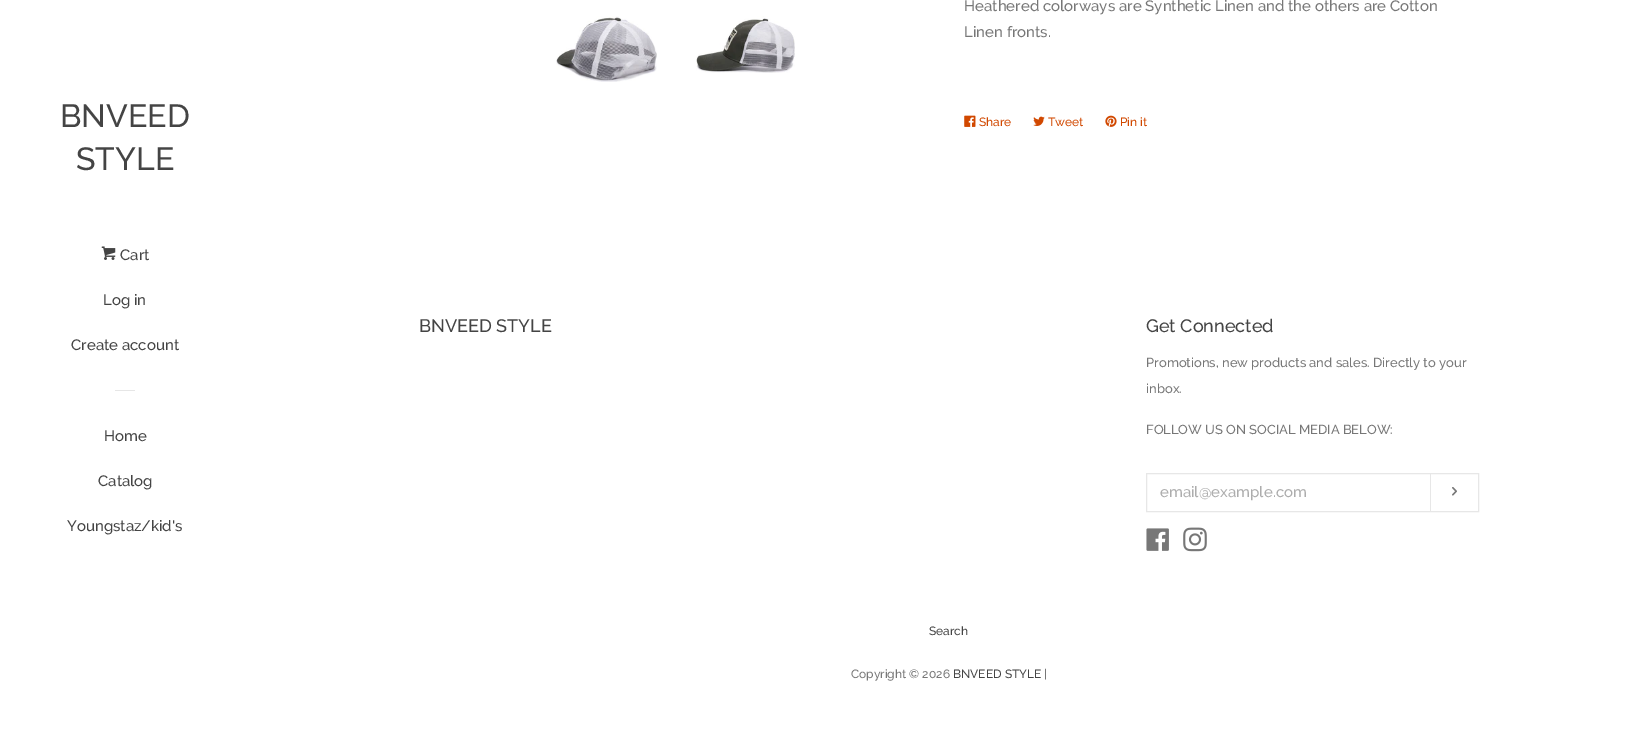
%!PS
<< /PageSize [1648 748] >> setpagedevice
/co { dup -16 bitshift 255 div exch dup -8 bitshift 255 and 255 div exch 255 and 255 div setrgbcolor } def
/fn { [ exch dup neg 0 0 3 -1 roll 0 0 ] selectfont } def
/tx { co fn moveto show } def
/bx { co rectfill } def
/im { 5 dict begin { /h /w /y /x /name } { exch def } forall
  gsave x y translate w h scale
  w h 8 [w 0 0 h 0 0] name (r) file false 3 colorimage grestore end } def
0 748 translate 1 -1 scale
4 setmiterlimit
0 0 1648 748 16#FFFFFF bx
(media/1.raw) 101 246 15 14 im
115 390 20 1 16#E6E6E6 bx
(media/2.raw) 556 16 101 66 im
(media/3.raw) 696 16 99 57 im
(media/4.raw) 964 115 12 12 im
(media/5.raw) 1033 116 12 10 im
(media/6.raw) 1105 115 12 12 im
16#E7E7E7 co
1146.5 473.5 332 38 rectstroke
1430 474 1 37 16#E7E7E7 bx
(media/7.raw) 1452 487 5 9 im
(media/8.raw) 1146 528 23 23 im
(media/9.raw) 1183 527 24 25 im
(BNVEED) 60 127 /Raleway-Medium 32 16#444444 tx
(STYLE) 76 170 /Raleway-Medium 32 16#444444 tx
(Cart) 120 260 /Raleway-Medium 15 16#444444 tx
(Log in) 103 305 /Raleway-Medium 15 16#444444 tx
(Create account) 71 350 /Raleway-Medium 15 16#444444 tx
(Home) 104 441 /Raleway-Medium 15 16#444444 tx
(Catalog) 98 486 /Raleway-Medium 15 16#444444 tx
(Youngstaz/kid's) 67 531 /Raleway-Medium 15 16#444444 tx
(Heathered colorways are Synthetic Linen and the others are Cotton) 964 11 /Raleway-Medium 15 16#777777 tx
(Linen fronts.) 964 37 /Raleway-Medium 15 16#777777 tx
(Share) 979 126 /Raleway-Medium 12 16#D14800 tx
(Tweet) 1048 126 /Raleway-Medium 12 16#D14800 tx
(Pin it) 1120 126 /Raleway-Medium 12 16#D14800 tx
(BNVEED STYLE) 419 332 /Raleway-Medium 18 16#444444 tx
(Get Connected) 1146 332 /Raleway-Medium 18 16#444444 tx
(Promotions, new products and sales. Directly to your) 1146 367 /Raleway-Medium 13 16#777777 tx
(inbox.) 1146 393 /Raleway-Medium 13 16#777777 tx
(FOLLOW US ON SOCIAL MEDIA BELOW:) 1146 434 /Raleway-Medium 13 16#777777 tx
(email@example.com) 1160 497 /Raleway-Medium 15 16#ADADAD tx
(Search) 929 635 /Raleway-Medium 12 16#444444 tx
(Copyright © 2026) 851 678 /Raleway-Medium 12 16#777777 tx
(BNVEED STYLE) 953 678 /Raleway-Medium 12 16#444444 tx
(|) 1044 678 /Raleway-Medium 12 16#777777 tx
showpage
